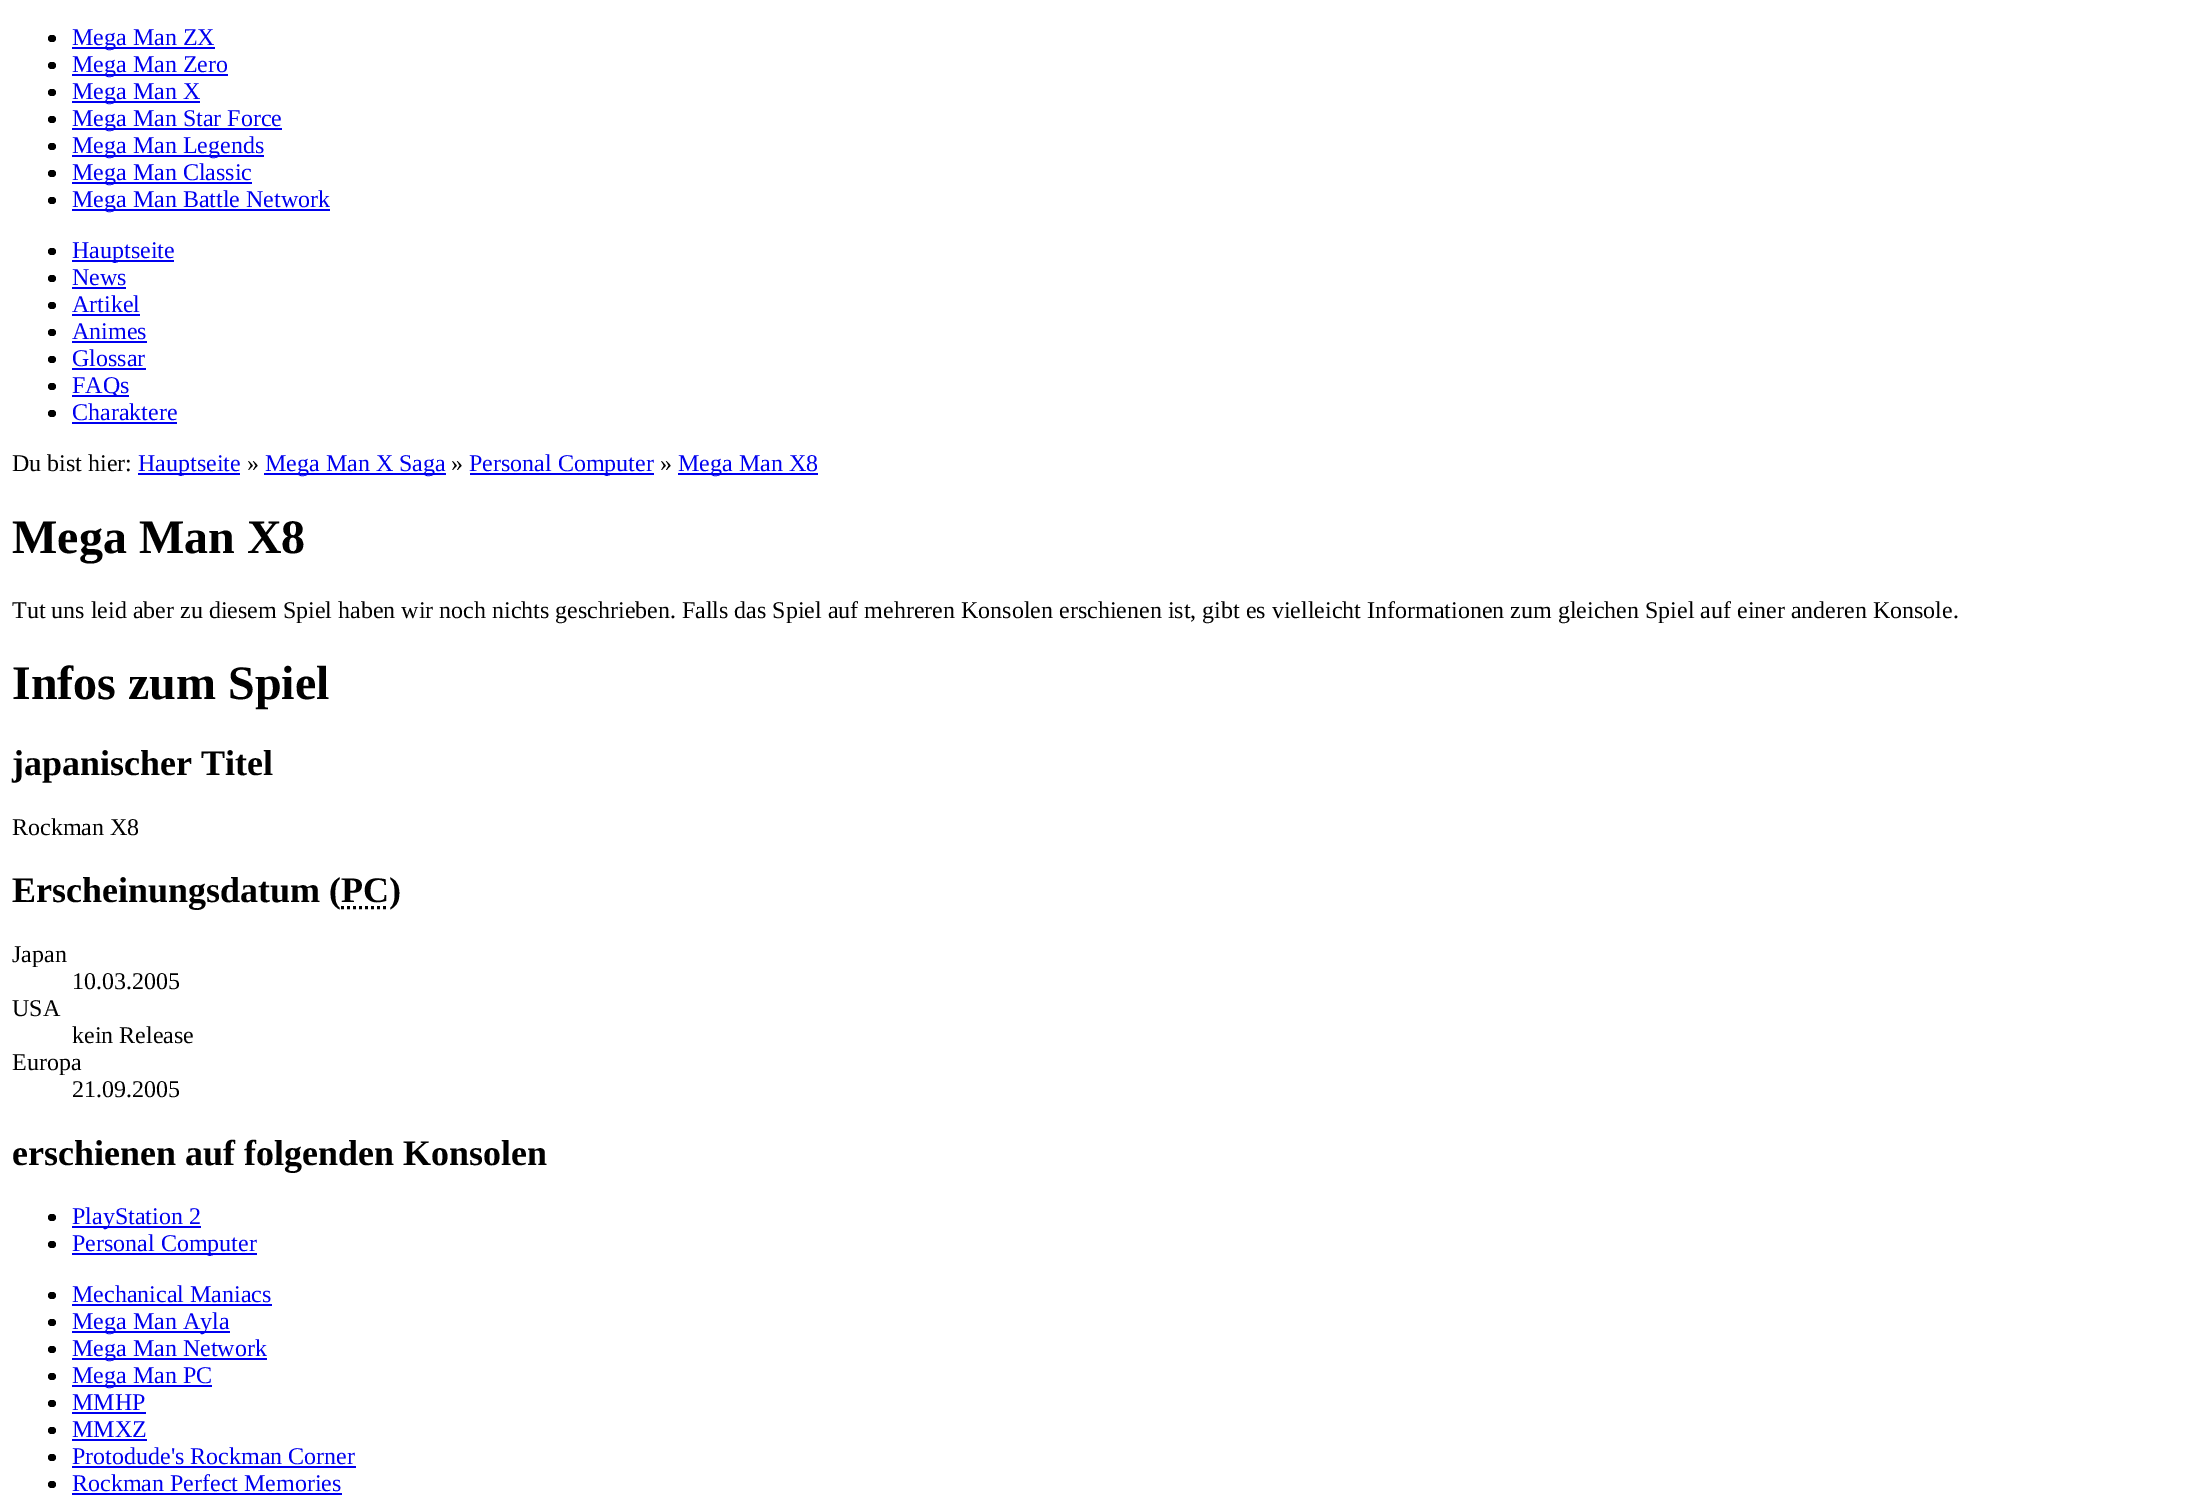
%!PS
<< /PageSize [2190 1497] >> setpagedevice
/mt/moveto load def
/li/lineto load def
/fl/fill load def
/st/stroke load def
/lw/setlinewidth load def
/co { dup -16 bitshift 255 div exch dup -8 bitshift 255 and 255 div exch 255 and 255 div setrgbcolor } def
/fn { [ exch dup neg 0 0 3 -1 roll 0 0 ] selectfont } def
/tx { co fn moveto show } def
/bx { co rectfill } def
/rr { 5 dict begin { /r /h /w /y /x } { exch def } forall
  x r add y moveto x w add y 2 copy h add r arct x w add y h add x 1 index r arct
  x y h add x y r arct x y 2 copy exch w add exch r arct closepath end } def
0 1497 translate 1 -1 scale
4 setmiterlimit
0 0 2190 1497 16#FFFFFF bx
16#000000 co
48 35 8 7 3.5 rr fl
72 47 143 2 16#0000EE bx
16#000000 co
48 62 8 7 3.5 rr fl
72 74 156 2 16#0000EE bx
16#000000 co
48 89 8 7 3.5 rr fl
72 101 128 2 16#0000EE bx
16#000000 co
48 116 8 7 3.5 rr fl
72 128 210 2 16#0000EE bx
16#000000 co
48 143 8 7 3.5 rr fl
72 155 192 2 16#0000EE bx
16#000000 co
48 170 8 7 3.5 rr fl
72 182 180 2 16#0000EE bx
16#000000 co
48 197 8 7 3.5 rr fl
72 209 258 2 16#0000EE bx
16#000000 co
48 248 8 7 3.5 rr fl
72 260 102 2 16#0000EE bx
16#000000 co
48 275 8 7 3.5 rr fl
72 287 54 2 16#0000EE bx
16#000000 co
48 302 8 7 3.5 rr fl
72 314 68 2 16#0000EE bx
16#000000 co
48 329 8 7 3.5 rr fl
72 341 75 2 16#0000EE bx
16#000000 co
48 356 8 7 3.5 rr fl
72 368 74 2 16#0000EE bx
16#000000 co
48 383 8 7 3.5 rr fl
72 395 57 2 16#0000EE bx
16#000000 co
48 410 8 7 3.5 rr fl
72 422 105 2 16#0000EE bx
138 473 102 2 16#0000EE bx
264 473 182 2 16#0000EE bx
470 473 184 2 16#0000EE bx
678 473 140 2 16#0000EE bx
16#000000 co
3 lw
[3 3] 0 setdash
341 907.5 mt 389 907.5 li st
48 1214 8 7 3.5 rr fl
72 1226 129 2 16#0000EE bx
16#000000 co
48 1241 8 7 3.5 rr fl
72 1253 185 2 16#0000EE bx
16#000000 co
48 1292 8 7 3.5 rr fl
72 1304 200 2 16#0000EE bx
16#000000 co
48 1319 8 7 3.5 rr fl
72 1331 158 2 16#0000EE bx
16#000000 co
48 1346 8 7 3.5 rr fl
72 1358 195 2 16#0000EE bx
16#000000 co
48 1373 8 7 3.5 rr fl
72 1385 140 2 16#0000EE bx
16#000000 co
48 1400 8 7 3.5 rr fl
72 1412 74 2 16#0000EE bx
16#000000 co
48 1427 8 7 3.5 rr fl
72 1439 75 2 16#0000EE bx
16#000000 co
48 1454 8 7 3.5 rr fl
72 1466 284 2 16#0000EE bx
16#000000 co
48 1481 8 7 3.5 rr fl
72 1493 270 2 16#0000EE bx
(Mega Man ZX) 72 45 /LiberationSerif-Regular 24 16#0000EE tx
(Mega Man Zero) 72 72 /LiberationSerif-Regular 24 16#0000EE tx
(Mega Man X) 72 99 /LiberationSerif-Regular 24 16#0000EE tx
(Mega Man Star Force) 72 126 /LiberationSerif-Regular 24 16#0000EE tx
(Mega Man Legends) 72 153 /LiberationSerif-Regular 24 16#0000EE tx
(Mega Man Classic) 72 180 /LiberationSerif-Regular 24 16#0000EE tx
(Mega Man Battle Network) 72 207 /LiberationSerif-Regular 24 16#0000EE tx
(Hauptseite) 72 258 /LiberationSerif-Regular 24 16#0000EE tx
(News) 72 285 /LiberationSerif-Regular 24 16#0000EE tx
(Artikel) 72 312 /LiberationSerif-Regular 24 16#0000EE tx
(Animes) 72 339 /LiberationSerif-Regular 24 16#0000EE tx
(Glossar) 72 366 /LiberationSerif-Regular 24 16#0000EE tx
(FAQs) 72 393 /LiberationSerif-Regular 24 16#0000EE tx
(Charaktere) 72 420 /LiberationSerif-Regular 24 16#0000EE tx
(Du bist hier:) 12 471 /LiberationSerif-Regular 24 16#000000 tx
(Hauptseite) 138 471 /LiberationSerif-Regular 24 16#0000EE tx
(») 247 471 /LiberationSerif-Regular 24 16#000000 tx
(Mega Man X Saga) 265 471 /LiberationSerif-Regular 24 16#0000EE tx
(») 451 471 /LiberationSerif-Regular 24 16#000000 tx
(Personal Computer) 469 471 /LiberationSerif-Regular 24 16#0000EE tx
(») 660 471 /LiberationSerif-Regular 24 16#000000 tx
(Mega Man X8) 678 471 /LiberationSerif-Regular 24 16#0000EE tx
(Mega Man X8) 12 553 /LiberationSerif-Bold 48 16#000000 tx
(Tut uns leid aber zu diesem Spiel haben wir noch nichts geschrieben. Falls das Spiel auf mehreren Konsolen erschienen ist, gibt es vielleicht Informationen zum gleichen Spiel auf einer anderen Konsole.) 12 618 /LiberationSerif-Regular 24 16#000000 tx
(Infos zum Spiel) 12 699 /LiberationSerif-Bold 48 16#000000 tx
(japanischer Titel) 12 775 /LiberationSerif-Bold 36 16#000000 tx
(Rockman X8) 12 835 /LiberationSerif-Regular 24 16#000000 tx
(Erscheinungsdatum \(PC\)) 12 902 /LiberationSerif-Bold 36 16#000000 tx
(Japan) 12 962 /LiberationSerif-Regular 24 16#000000 tx
(10.03.2005) 72 989 /LiberationSerif-Regular 24 16#000000 tx
(USA) 12 1016 /LiberationSerif-Regular 24 16#000000 tx
(kein Release) 72 1043 /LiberationSerif-Regular 24 16#000000 tx
(Europa) 12 1070 /LiberationSerif-Regular 24 16#000000 tx
(21.09.2005) 72 1097 /LiberationSerif-Regular 24 16#000000 tx
(erschienen auf folgenden Konsolen) 12 1165 /LiberationSerif-Bold 36 16#000000 tx
(PlayStation 2) 72 1224 /LiberationSerif-Regular 24 16#0000EE tx
(Personal Computer) 72 1251 /LiberationSerif-Regular 24 16#0000EE tx
(Mechanical Maniacs) 72 1302 /LiberationSerif-Regular 24 16#0000EE tx
(Mega Man Ayla) 72 1329 /LiberationSerif-Regular 24 16#0000EE tx
(Mega Man Network) 72 1356 /LiberationSerif-Regular 24 16#0000EE tx
(Mega Man PC) 72 1383 /LiberationSerif-Regular 24 16#0000EE tx
(MMHP) 72 1410 /LiberationSerif-Regular 24 16#0000EE tx
(MMXZ) 72 1437 /LiberationSerif-Regular 24 16#0000EE tx
(Protodude's Rockman Corner) 72 1464 /LiberationSerif-Regular 24 16#0000EE tx
(Rockman Perfect Memories) 72 1491 /LiberationSerif-Regular 24 16#0000EE tx
showpage
